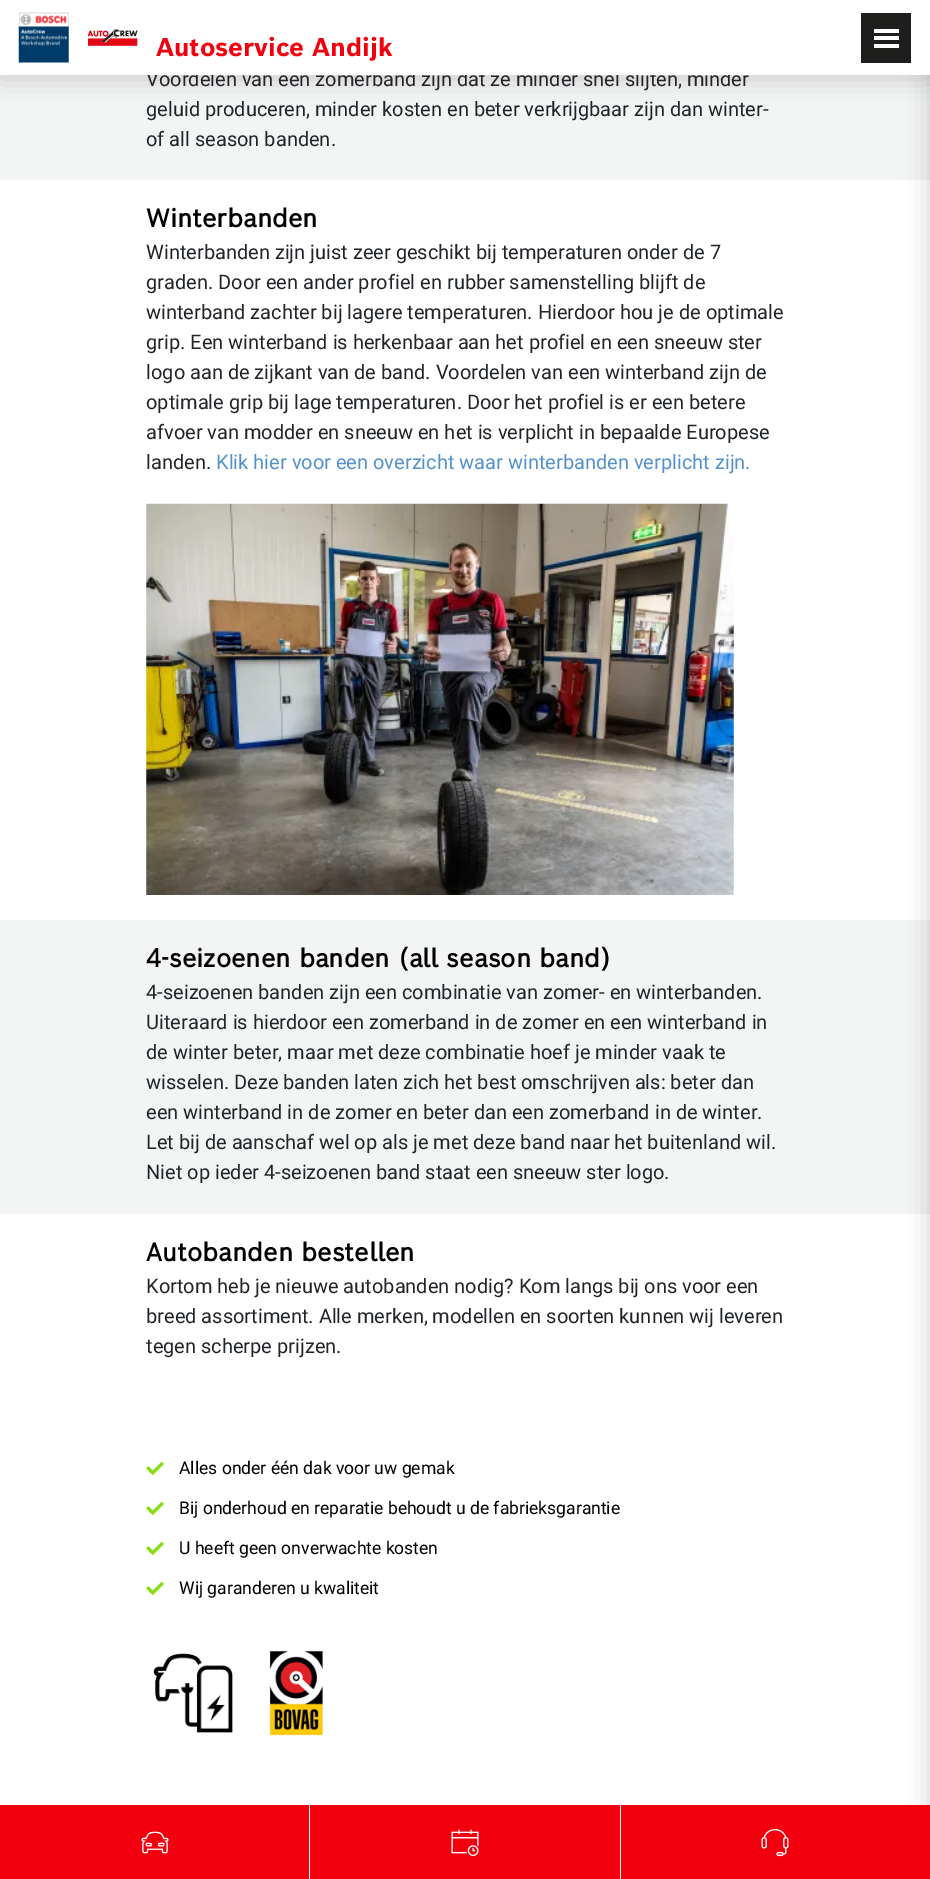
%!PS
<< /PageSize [930 1879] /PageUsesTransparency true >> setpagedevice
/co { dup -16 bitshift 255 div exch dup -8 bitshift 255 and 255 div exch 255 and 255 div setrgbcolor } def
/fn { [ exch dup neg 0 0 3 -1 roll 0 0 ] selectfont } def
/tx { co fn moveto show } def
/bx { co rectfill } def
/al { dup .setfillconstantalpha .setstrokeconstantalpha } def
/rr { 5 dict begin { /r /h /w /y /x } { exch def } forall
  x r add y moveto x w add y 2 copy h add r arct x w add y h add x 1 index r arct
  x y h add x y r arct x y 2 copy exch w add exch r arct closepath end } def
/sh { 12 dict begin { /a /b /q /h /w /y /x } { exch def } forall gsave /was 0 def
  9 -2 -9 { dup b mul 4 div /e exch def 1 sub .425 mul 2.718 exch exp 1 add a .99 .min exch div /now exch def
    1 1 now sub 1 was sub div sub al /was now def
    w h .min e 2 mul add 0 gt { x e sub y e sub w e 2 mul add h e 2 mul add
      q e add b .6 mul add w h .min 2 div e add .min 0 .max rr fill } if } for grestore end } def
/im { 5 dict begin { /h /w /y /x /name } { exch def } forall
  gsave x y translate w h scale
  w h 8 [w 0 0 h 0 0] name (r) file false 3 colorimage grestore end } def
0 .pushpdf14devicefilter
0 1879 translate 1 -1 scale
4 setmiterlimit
0 0 930 1879 16#FFFFFF bx
0 75 930 105 16#F3F4F4 bx
16#000000 co
0 3 930 75 0 12.5 .18 sh
0 920 930 294 16#F3F4F4 bx
16#000000 co
930 3 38 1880 0 12.5 .18 sh
(media/3.raw) 146 503 588 392 im
(media/4.raw) 146 1461 18 14 im
(media/4.raw) 146 1501 18 14 im
(media/4.raw) 146 1541 18 14 im
(media/4.raw) 146 1581 18 14 im
(media/5.raw) 153 1653 80 80 im
(media/6.raw) 269 1650 55 86 im
0 1805 930 74 16#F3000F bx
309 1805 1 74 16#FFFFFF bx
(media/7.raw) 141 1831 28 23 im
620 1805 1 74 16#FFFFFF bx
(media/8.raw) 451 1829 28 27 im
(media/9.raw) 761 1829 28 28 im
(Voordelen van een zomerband zijn dat ze minder snel slijten, minder) 146 86 /Roboto-Regular 20 16#212529 tx
0 0 930 75 16#FFFFFF bx
(Autoservice Andijk) 156 56 /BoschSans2-Bold 25 16#F3000F tx
(media/1.raw) 18 12 51 51 im
(media/2.raw) 88 29 50 17 im
861 13 50 50 16#1E1E1C bx
874 44 25 4 16#FFFFFF bx
874 36 25 4 16#FFFFFF bx
874 29 25 4 16#FFFFFF bx
(geluid produceren, minder kosten en beter verkrijgbaar zijn dan winter-) 146 116 /Roboto-Regular 20 16#212529 tx
(of all season banden.) 146 146 /Roboto-Regular 20 16#212529 tx
(Winterbanden) 146 227 /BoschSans-Bold 25 16#000000 tx
(Winterbanden zijn juist zeer geschikt bij temperaturen onder de 7) 146 259 /Roboto-Regular 20 16#212529 tx
(graden. Door een ander profiel en rubber samenstelling blijft de) 146 289 /Roboto-Regular 20 16#212529 tx
(winterband zachter bij lagere temperaturen. Hierdoor hou je de optimale) 146 319 /Roboto-Regular 20 16#212529 tx
(grip. Een winterband is herkenbaar aan het profiel en een sneeuw ster) 146 349 /Roboto-Regular 20 16#212529 tx
(logo aan de zijkant van de band. Voordelen van een winterband zijn de) 146 379 /Roboto-Regular 20 16#212529 tx
(optimale grip bij lage temperaturen. Door het profiel is er een betere) 146 409 /Roboto-Regular 20 16#212529 tx
(afvoer van modder en sneeuw en het is verplicht in bepaalde Europese) 146 439 /Roboto-Regular 20 16#212529 tx
(landen.) 146 469 /Roboto-Regular 20 16#212529 tx
(Klik hier voor een overzicht waar winterbanden verplicht zijn.) 216 469 /Roboto-Regular 20 16#5291CE tx
(4-seizoenen banden \(all season band\)) 146 967 /BoschSans-Bold 25 16#000000 tx
(4-seizoenen banden zijn een combinatie van zomer- en winterbanden.) 146 999 /Roboto-Regular 20 16#212529 tx
(Uiteraard is hierdoor een zomerband in de zomer en een winterband in) 146 1029 /Roboto-Regular 20 16#212529 tx
(de winter beter, maar met deze combinatie hoef je minder vaak te) 146 1059 /Roboto-Regular 20 16#212529 tx
(wisselen. Deze banden laten zich het best omschrijven als: beter dan) 146 1089 /Roboto-Regular 20 16#212529 tx
(een winterband in de zomer en beter dan een zomerband in de winter.) 146 1119 /Roboto-Regular 20 16#212529 tx
(Let bij de aanschaf wel op als je met deze band naar het buitenland wil.) 146 1149 /Roboto-Regular 20 16#212529 tx
(Niet op ieder 4-seizoenen band staat een sneeuw ster logo.) 146 1179 /Roboto-Regular 20 16#212529 tx
(Autobanden bestellen) 146 1261 /BoschSans-Bold 25 16#000000 tx
(Kortom heb je nieuwe autobanden nodig? Kom langs bij ons voor een) 146 1293 /Roboto-Regular 20 16#212529 tx
(breed assortiment. Alle merken, modellen en soorten kunnen wij leveren) 146 1323 /Roboto-Regular 20 16#212529 tx
(tegen scherpe prijzen.) 146 1353 /Roboto-Regular 20 16#212529 tx
(Alles onder één dak voor uw gemak) 179 1474 /Roboto-Regular 17.5 16#000000 tx
(Bij onderhoud en reparatie behoudt u de fabrieksgarantie) 179 1514 /Roboto-Regular 17.5 16#000000 tx
(U heeft geen onverwachte kosten) 179 1554 /Roboto-Regular 17.5 16#000000 tx
(Wij garanderen u kwaliteit) 179 1594 /Roboto-Regular 17.5 16#000000 tx
.poppdf14devicefilter showpage
